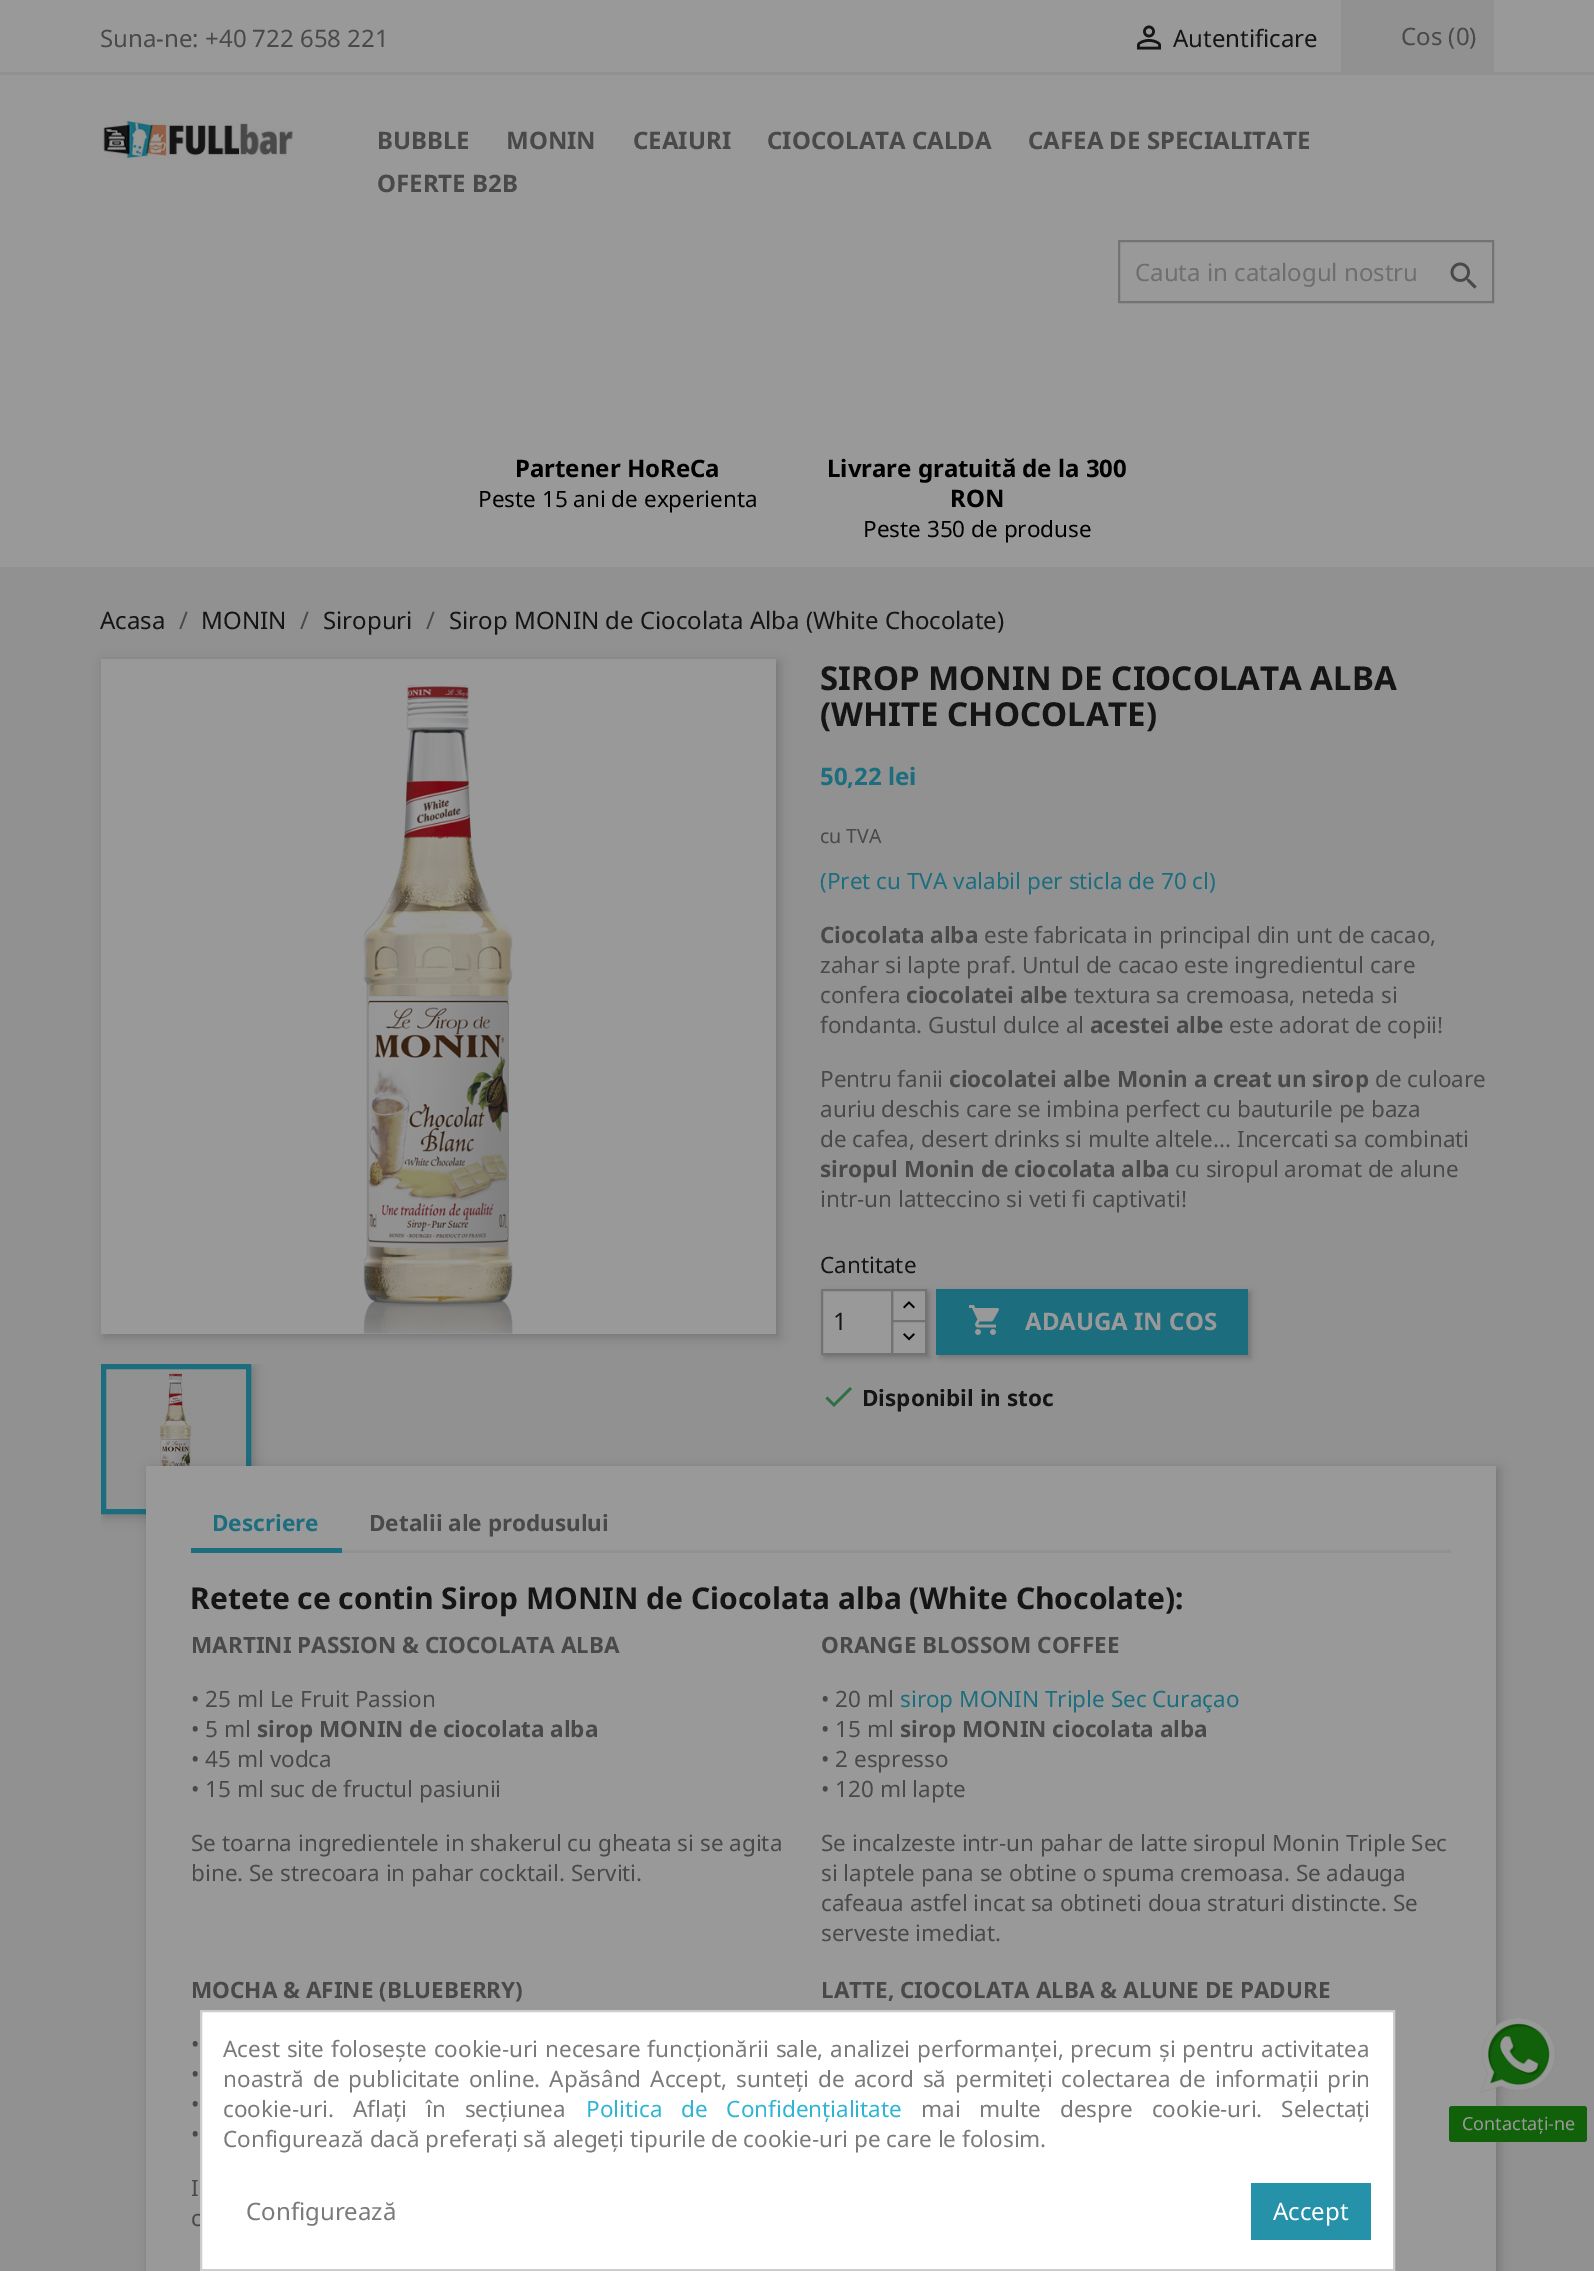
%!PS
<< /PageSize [1594 2271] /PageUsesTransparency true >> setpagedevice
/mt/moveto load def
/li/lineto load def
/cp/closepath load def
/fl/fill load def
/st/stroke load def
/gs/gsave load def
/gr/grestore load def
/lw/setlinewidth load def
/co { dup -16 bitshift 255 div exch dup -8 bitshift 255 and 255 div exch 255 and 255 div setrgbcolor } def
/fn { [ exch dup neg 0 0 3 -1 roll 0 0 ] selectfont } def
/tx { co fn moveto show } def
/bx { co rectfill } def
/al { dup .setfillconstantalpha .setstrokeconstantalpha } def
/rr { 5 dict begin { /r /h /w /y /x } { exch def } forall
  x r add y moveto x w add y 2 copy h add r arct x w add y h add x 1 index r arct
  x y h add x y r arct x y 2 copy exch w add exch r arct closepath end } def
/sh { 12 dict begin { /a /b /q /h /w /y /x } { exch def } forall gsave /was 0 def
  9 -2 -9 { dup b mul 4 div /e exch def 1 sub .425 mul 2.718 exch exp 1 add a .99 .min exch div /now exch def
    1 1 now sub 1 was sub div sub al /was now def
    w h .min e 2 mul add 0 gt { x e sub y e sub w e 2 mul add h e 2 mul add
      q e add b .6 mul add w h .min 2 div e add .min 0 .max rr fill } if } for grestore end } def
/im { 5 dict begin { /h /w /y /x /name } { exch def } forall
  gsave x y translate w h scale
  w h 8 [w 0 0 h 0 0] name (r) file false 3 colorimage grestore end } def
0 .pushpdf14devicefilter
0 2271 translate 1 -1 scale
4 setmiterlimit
0 0 1594 2271 16#999999 bx
0 72 1594 3 16#919191 bx
(media/1.raw) 1136 25 26 25 im
1341 0 153 72 16#919191 bx
(media/2.raw) 103 120 190 39 im
16#737373 co
2 lw
1119 241 374 61 rectstroke
(media/3.raw) 1450 262 27 27 im
0 567 1594 1704 16#919191 bx
16#000000 co
104 662 675 675 0 6 .2 sh
101 659 675 675 16#999999 bx
(media/4.raw) 363 685 150 649 im
gs
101 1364 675 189 rectclip
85 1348 mt 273 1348 li 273 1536 li 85 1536 li cp 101 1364 mt 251 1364 li 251 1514 li 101 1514 li cp eoclip newpath
16#000000 co
104 1367 150 150 0 6 .2 sh
gr
16#1C6D7E co
5 lw
103.5 1366.5 145 145 rectstroke
(media/5.raw) 159 1373 33 93 im
16#000000 co
939 1292 312 66 0 3 .2 sh
936 1289 312 66 16#1C6D7E bx
16#000000 co
824 1292 106 66 0 3 .2 sh
893 1291 32 29 16#999999 bx
16#737373 co
2 lw
892 1290 34 32 rectstroke
16#999999 co
892 1321 mt 926 1321 li 926 1354 li 892 1354 li cp gs fl gr
16#737373 co
st
16#999999 co
822 1290 mt 892 1290 li 892 1354 li 822 1354 li cp gs fl gr
16#737373 co
st
(media/6.raw) 903 1301 12 8 im
(media/7.raw) 903 1333 12 8 im
(media/8.raw) 968 1305 31 30 im
16#2E7041 co
834 1403 mt 850 1387 li 852 1389 li 834 1407 li 825.5 1398.5 li 827.5 1396.5 li cp fl
16#000000 co
149 1469 1350 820 0 6 .2 sh
146 1466 1350 805 16#999999 bx
342 1550 1109 3 16#919191 bx
191 1548 151 5 16#1C6D7E bx
(media/9.raw) 1480 2017 76 76 im
16#11610A co
1449 2106 138 36 3 rr fl
(Suna-ne: +40 722 658 221) 100 47 /NotoSans-Regular 24 16#494949 tx
(Autentificare) 1173 47 /NotoSans-Regular 24 16#151515 tx
(Cos \(0\)) 1401 45 /NotoSans-Regular 24 16#494949 tx
(BUBBLE) 377 149 /NotoSans-Bold 24 16#494949 tx
(MONIN) 506 149 /NotoSans-Bold 24 16#494949 tx
(CEAIURI) 633 149 /NotoSans-Bold 24 16#494949 tx
(CIOCOLATA CALDA) 767 149 /NotoSans-Bold 24 16#494949 tx
(CAFEA DE SPECIALITATE) 1028 149 /NotoSans-Bold 24 16#494949 tx
(OFERTE B2B) 377 192 /NotoSans-Bold 24 16#494949 tx
(Cauta in catalogul nostru) 1135 281 /NotoSans-Regular 24 16#6E6E6E tx
(Partener HoReCa) 515 477 /NotoSans-Bold 24 16#000000 tx
(Peste 15 ani de experienta) 478 507 /NotoSans-Regular 22.5 16#000000 tx
(Livrare gratuită de la 300) 827 477 /NotoSans-Bold 24 16#000000 tx
(RON) 950 507 /NotoSans-Bold 24 16#000000 tx
(Peste 350 de produse) 863 537 /NotoSans-Regular 22.5 16#000000 tx
(Acasa) 100 629 /NotoSans-Regular 24 16#151515 tx
(/) 179 629 /NotoSans-Regular 24 16#494949 tx
(MONIN) 201 629 /NotoSans-Regular 24 16#151515 tx
(/) 300 629 /NotoSans-Regular 24 16#494949 tx
(Siropuri) 323 629 /NotoSans-Regular 24 16#151515 tx
(/) 426 629 /NotoSans-Regular 24 16#494949 tx
(Sirop MONIN de Ciocolata Alba \(White Chocolate\)) 449 629 /NotoSans-Regular 24 16#151515 tx
(SIROP MONIN DE CIOCOLATA ALBA) 820 690 /NotoSans-Bold 33 16#151515 tx
(\(WHITE CHOCOLATE\)) 820 726 /NotoSans-Bold 33 16#151515 tx
(50,22 lei) 820 785 /NotoSans-Bold 24 16#1C6D7E tx
(cu TVA) 820 843 /NotoSans-Regular 19.5 16#494949 tx
(\(Pret cu TVA valabil per sticla de 70 cl\)) 820 889 /NotoSans-Regular 22.5 16#1C6D7E tx
(Ciocolata alba) 820 943 /NotoSans-Bold 22.5 16#494949 tx
(este fabricata in principal din unt de cacao,) 984 943 /NotoSans-Regular 22.5 16#494949 tx
(zahar si lapte praf. Untul de cacao este ingredientul care) 820 973 /NotoSans-Regular 22.5 16#494949 tx
(confera) 820 1003 /NotoSans-Regular 22.5 16#494949 tx
(ciocolatei albe) 906 1003 /NotoSans-Bold 22.5 16#494949 tx
(textura sa cremoasa, neteda si) 1074 1003 /NotoSans-Regular 22.5 16#494949 tx
(fondanta. Gustul dulce al) 820 1033 /NotoSans-Regular 22.5 16#494949 tx
(acestei albe) 1090 1033 /NotoSans-Bold 22.5 16#494949 tx
(este adorat de copii!) 1229 1033 /NotoSans-Regular 22.5 16#494949 tx
(Pentru fanii) 820 1087 /NotoSans-Regular 22.5 16#494949 tx
(ciocolatei albe Monin a creat un sirop) 949 1087 /NotoSans-Bold 22.5 16#494949 tx
(de culoare) 1375 1087 /NotoSans-Regular 22.5 16#494949 tx
(auriu deschis care se imbina perfect cu bauturile pe baza) 820 1117 /NotoSans-Regular 22.5 16#494949 tx
(de cafea, desert drinks si multe altele... Incercati sa combinati) 820 1147 /NotoSans-Regular 22.5 16#494949 tx
(siropul Monin de ciocolata alba) 820 1177 /NotoSans-Bold 22.5 16#494949 tx
(cu siropul aromat de alune) 1175 1177 /NotoSans-Regular 22.5 16#494949 tx
(intr-un latteccino si veti fi captivati!) 820 1207 /NotoSans-Regular 22.5 16#494949 tx
(Cantitate) 820 1273 /NotoSans-Regular 22.5 16#151515 tx
(1) 833 1330 /NotoSans-Regular 24 16#151515 tx
(ADAUGA IN COS) 1025 1330 /NotoSans-Bold 24 16#999999 tx
(Disponibil in stoc) 862 1406 /NotoSans-Bold 22.5 16#151515 tx
(Descriere) 212 1531 /NotoSans-Bold 22.5 16#1C6D7E tx
(Detalii ale produsului) 369 1531 /NotoSans-Bold 22.5 16#494949 tx
(Retete ce contin Sirop MONIN de Ciocolata alba \(White Chocolate\):) 190 1609 /NotoSans-Bold 30 16#151515 tx
(MARTINI PASSION & CIOCOLATA ALBA) 191 1653 /NotoSans-Bold 22.5 16#494949 tx
(• 25 ml Le Fruit Passion) 191 1707 /NotoSans-Regular 22.5 16#494949 tx
(• 5 ml) 191 1737 /NotoSans-Regular 22.5 16#494949 tx
(sirop MONIN de ciocolata alba) 257 1737 /NotoSans-Bold 22.5 16#494949 tx
(• 45 ml vodca) 191 1767 /NotoSans-Regular 22.5 16#494949 tx
(• 15 ml suc de fructul pasiunii) 191 1797 /NotoSans-Regular 22.5 16#494949 tx
(Se toarna ingredientele in shakerul cu gheata si se agita) 191 1851 /NotoSans-Regular 22.5 16#494949 tx
(bine. Se strecoara in pahar cocktail. Serviti.) 191 1881 /NotoSans-Regular 22.5 16#494949 tx
(ORANGE BLOSSOM COFFEE) 821 1653 /NotoSans-Bold 22.5 16#494949 tx
(• 20 ml) 821 1707 /NotoSans-Regular 22.5 16#494949 tx
(sirop MONIN Triple Sec Curaçao) 900 1707 /NotoSans-Regular 22.5 16#1C6D7E tx
(• 15 ml) 821 1737 /NotoSans-Regular 22.5 16#494949 tx
(sirop MONIN ciocolata alba) 900 1737 /NotoSans-Bold 22.5 16#494949 tx
(• 2 espresso) 821 1767 /NotoSans-Regular 22.5 16#494949 tx
(• 120 ml lapte) 821 1797 /NotoSans-Regular 22.5 16#494949 tx
(Se incalzeste intr-un pahar de latte siropul Monin Triple Sec) 821 1851 /NotoSans-Regular 22.5 16#494949 tx
(si laptele pana se obtine o spuma cremoasa. Se adauga) 821 1881 /NotoSans-Regular 22.5 16#494949 tx
(cafeaua astfel incat sa obtineti doua straturi distincte. Se) 821 1911 /NotoSans-Regular 22.5 16#494949 tx
(serveste imediat.) 821 1941 /NotoSans-Regular 22.5 16#494949 tx
(MOCHA & AFINE \(BLUEBERRY\)) 191 1998 /NotoSans-Bold 22.5 16#494949 tx
(•) 191 2052 /NotoSans-Regular 22.5 16#494949 tx
(•) 191 2082 /NotoSans-Regular 22.5 16#494949 tx
(•) 191 2112 /NotoSans-Regular 22.5 16#494949 tx
(•) 191 2142 /NotoSans-Regular 22.5 16#494949 tx
(I) 191 2196 /NotoSans-Regular 22.5 16#494949 tx
(c) 191 2226 /NotoSans-Regular 22.5 16#494949 tx
(LATTE, CIOCOLATA ALBA & ALUNE DE PADURE) 821 1998 /NotoSans-Bold 22.5 16#494949 tx
(Contactați-ne) 1462 2130 /NotoSans-Regular 18 16#999999 tx
16#FFFFFF co
201 2011 mt 1394 2011 li 1394 2270 li 201 2270 li cp gs fl gr
16#CCCCCC co
st
/NotoSans-Regular 22.5 fn
16#7A7A7A co
223 2057 mt 1 0 32 (Acest site folosește cookie-uri necesare funcționării sale, analizei performanței, precum și pentru activitatea) widthshow
223 2087 mt 3.1 0 32 (noastră de publicitate online. Apăsând Accept, sunteți de acord să permiteți colectarea de informații prin) widthshow
223 2117 mt 13 0 32 (cookie-uri. Aflați în secțiunea) widthshow
16#2FB5D2 co
586 2117 mt 13 0 32 (Politica de Confidențialitate) widthshow
16#7A7A7A co
921 2117 mt 13 0 32 (mai multe despre cookie-uri. Selectați) widthshow
(Configurează dacă preferați să alegeți tipurile de cookie-uri pe care le folosim.) 223 2147 /NotoSans-Regular 22.5 16#7A7A7A tx
(Configurează) 246 2220 /NotoSans-Regular 24 16#7A7A7A tx
1251 2183 120 57 16#2592A9 bx
(Accept) 1273 2220 /NotoSans-Regular 24 16#FFFFFF tx
.poppdf14devicefilter showpage
